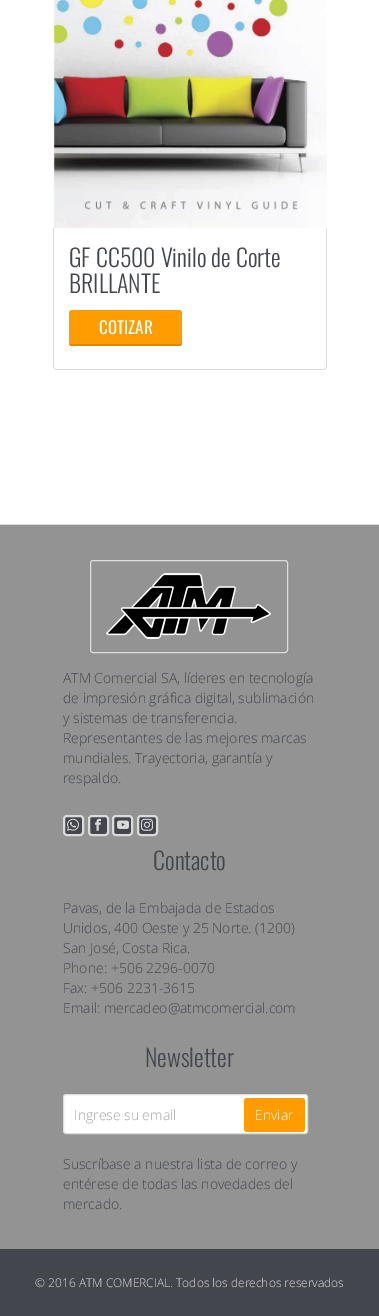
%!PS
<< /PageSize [379 1316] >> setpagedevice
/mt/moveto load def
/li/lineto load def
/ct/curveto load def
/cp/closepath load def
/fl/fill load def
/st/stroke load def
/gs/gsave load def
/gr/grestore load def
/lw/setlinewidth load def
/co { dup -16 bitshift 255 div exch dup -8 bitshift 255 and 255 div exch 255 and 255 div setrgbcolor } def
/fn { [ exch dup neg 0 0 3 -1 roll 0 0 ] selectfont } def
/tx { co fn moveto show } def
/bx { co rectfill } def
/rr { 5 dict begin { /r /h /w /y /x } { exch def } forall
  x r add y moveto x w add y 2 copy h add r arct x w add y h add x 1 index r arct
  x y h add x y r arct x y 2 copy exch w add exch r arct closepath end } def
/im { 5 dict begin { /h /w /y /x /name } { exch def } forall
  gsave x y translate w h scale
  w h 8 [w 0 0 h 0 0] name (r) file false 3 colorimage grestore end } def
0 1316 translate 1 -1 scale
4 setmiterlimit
0 0 379 1316 16#FFFFFF bx
(media/1.raw) 53 0 274 228 im
16#DCDCDC co
53 228 mt 327 228 li 327 366 li 327 368 325 370 323 370 ct 57 370 li 55 370 53 368 53 366 ct cp 54 228 mt 326 228 li 326 366 li 326 368 325 369 323 369 ct 57 369 li 55 369 54 368 54 366 ct cp eofill
16#DF8800 co
69 341 mt 69 343 li 69 345 70 346 72 346 ct 179 346 li 181 346 182 345 182 343 ct 182 341 li 181 343 li 179 344 li 72 344 li 70 344 69 343 69 341 ct cp fl
16#FF9C00 co
69 310 113 34 3 rr fl
0 525 379 724 16#939393 bx
0 524 379 1 16#DCDCDC bx
90.5 560.5 197 92 2.5 rr st
(media/2.raw) 106 573 165 66 im
16#43474D co
64 816 19 19 3 rr gs fl gr
16#DADADA co
2 lw
st
(media/3.raw) 67 818 12 13 im
16#43474D co
89 816 19 19 3 rr gs fl gr
16#DADADA co
st
(media/4.raw) 95 818 6 13 im
16#43474D co
113 816 19 19 3 rr gs fl gr
16#DADADA co
st
(media/5.raw) 117 820 12 9 im
16#43474D co
138 816 19 19 3 rr gs fl gr
16#DADADA co
st
(media/6.raw) 141 818 12 13 im
16#FFFFFF co
63.5 1094.5 244 39 2.5 rr gs fl gr
16#DCDCDC co
1 lw
st
16#FF9C00 co
244 1098 61 34 3 rr fl
0 1249 379 67 16#43474D bx
(GF CC500 Vinilo de Corte) 69 267 /Oswald-Light 24 16#43474D tx
(BRILLANTE) 69 293 /Oswald-Light 24 16#43474D tx
(COTIZAR) 99 334 /Oswald-Regular 17 16#FFFFFF tx
(ATM Comercial SA, líderes en tecnología) 63 683 /OpenSans-Light 14 16#43474D tx
(de impresión gráfica digital, sublimación) 63 703 /OpenSans-Light 14 16#43474D tx
(y sistemas de transferencia.) 63 723 /OpenSans-Light 14 16#43474D tx
(Representantes de las mejores marcas) 63 743 /OpenSans-Light 14 16#43474D tx
(mundiales. Trayectoria, garantía y) 63 763 /OpenSans-Light 14 16#43474D tx
(respaldo.) 63 783 /OpenSans-Light 14 16#43474D tx
(Contacto) 153 870 /Oswald-Light 24 16#43474D tx
(Pavas, de la Embajada de Estados) 63 913 /OpenSans-Light 14 16#43474D tx
(Unidos, 400 Oeste y 25 Norte. \(1200\)) 63 933 /OpenSans-Light 14 16#43474D tx
(San José, Costa Rica.) 63 953 /OpenSans-Light 14 16#43474D tx
(Phone: +506 2296-0070) 63 973 /OpenSans-Light 14 16#43474D tx
(Fax: +506 2231-3615) 63 993 /OpenSans-Light 14 16#43474D tx
(Email: mercadeo@atmcomercial.com) 63 1013 /OpenSans-Light 14 16#43474D tx
(Newsletter) 145 1067 /Oswald-Light 24 16#43474D tx
(Ingrese su email) 74 1120 /OpenSans-Light 14 16#A3A3A3 tx
(Enviar) 255 1120 /OpenSans-Light 14 16#FFFFFF tx
(Suscríbase a nuestra lista de correo y) 63 1169 /OpenSans-Light 14 16#43474D tx
(entérese de todas las novedades del) 63 1189 /OpenSans-Light 14 16#43474D tx
(mercado.) 63 1209 /OpenSans-Light 14 16#43474D tx
(© 2016 ATM COMERCIAL. Todos los derechos reservados) 35 1287 /OpenSans-Light 12 16#DADADA tx
showpage
